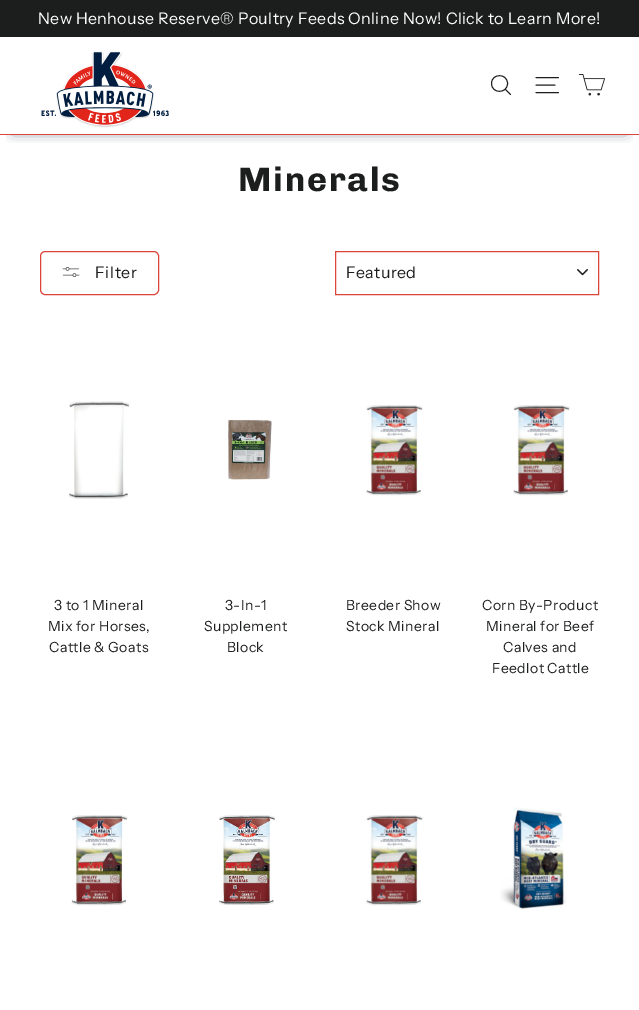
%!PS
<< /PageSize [639 1010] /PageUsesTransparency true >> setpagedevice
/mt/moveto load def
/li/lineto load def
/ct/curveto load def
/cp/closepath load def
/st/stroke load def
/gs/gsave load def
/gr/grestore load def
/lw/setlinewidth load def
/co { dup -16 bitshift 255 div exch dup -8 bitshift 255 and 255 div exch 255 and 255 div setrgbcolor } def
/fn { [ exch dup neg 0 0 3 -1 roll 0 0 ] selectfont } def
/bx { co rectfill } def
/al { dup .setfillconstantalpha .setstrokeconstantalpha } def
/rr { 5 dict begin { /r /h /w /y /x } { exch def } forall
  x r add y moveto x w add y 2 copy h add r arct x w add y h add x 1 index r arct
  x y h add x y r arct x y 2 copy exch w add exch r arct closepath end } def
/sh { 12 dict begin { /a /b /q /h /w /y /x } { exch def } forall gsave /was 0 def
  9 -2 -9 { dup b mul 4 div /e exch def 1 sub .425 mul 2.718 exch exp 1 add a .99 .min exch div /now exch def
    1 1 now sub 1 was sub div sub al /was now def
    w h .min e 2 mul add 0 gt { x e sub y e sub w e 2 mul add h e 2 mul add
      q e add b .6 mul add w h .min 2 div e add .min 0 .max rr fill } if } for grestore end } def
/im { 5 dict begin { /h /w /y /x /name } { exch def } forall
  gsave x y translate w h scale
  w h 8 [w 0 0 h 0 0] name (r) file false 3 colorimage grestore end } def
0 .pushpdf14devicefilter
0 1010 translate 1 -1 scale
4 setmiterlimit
0 0 639 1010 16#FFFFFF bx
0 0 639 37 16#1C1D1D bx
gs
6 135 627 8 rectclip
16#091822 co
14 59 611 70 0 7 1 sh
gr
0 134 639 1 16#DC4539 bx
(media/1.raw) 41 51 128 77 im
16#1C1D1D co
.9 lw
1 setlinecap
1 setlinejoin
507.5 83.5 mt 507.5 94 491.5 94 491.5 83.5 ct 491.5 73 507.5 73 507.5 83.5 ct cp 510.5 94.5 mt 505.5 89.5 li st
536 77.5 mt 558.5 77.5 li 536 85 mt 555 85 li 536 92.5 mt 558.5 92.5 li st
(media/2.raw) 578 74 27 22 im
16#DC4539 co
1 lw
0 setlinecap
0 setlinejoin
40.5 251.5 118 43 4.5 rr st
(media/3.raw) 62 267 18 10 im
(media/4.raw) 577 269 11 7 im
335.5 251.5 263 43 rectstroke
(media/5.raw) 69 401 61 98 im
(media/6.raw) 228 419 44 61 im
(media/7.raw) 366 405 57 91 im
(media/8.raw) 513 405 57 91 im
(media/9.raw) 71 815 57 91 im
(media/10.raw) 219 815 57 90 im
(media/7.raw) 366 815 57 91 im
(media/11.raw) 500 807 67 102 im
/InstrumentSans-Regular 16 fn
16#FFFFFF co
38 24 mt .4 0 (New Henhouse Reserve® Poultry Feeds Online Now! Click to Learn More!) ashow
/Chivo-Bold 34 fn
16#1C1D1D co
238 191 mt 1.75 0 (Minerals) ashow
/InstrumentSans-Regular 16 fn
95 278 mt .75 0 (Filter) ashow
346 278 mt .4 0 (Featured) ashow
/InstrumentSans-Regular 14 fn
54 610 mt .4 0 (3 to 1 Mineral) ashow
48 631 mt .4 0 (Mix for Horses,) ashow
49 652 mt .4 0 (Cattle & Goats) ashow
225 610 mt .4 0 (3-In-1) ashow
204 631 mt .4 0 (Supplement) ashow
227 652 mt .4 0 (Block) ashow
346 610 mt .4 0 (Breeder Show) ashow
346 631 mt .4 0 (Stock Mineral) ashow
482 610 mt .4 0 (Corn By-Product) ashow
486 631 mt .4 0 (Mineral for Beef) ashow
503 652 mt .4 0 (Calves and) ashow
492 673 mt .4 0 (Feedlot Cattle) ashow
.poppdf14devicefilter showpage
